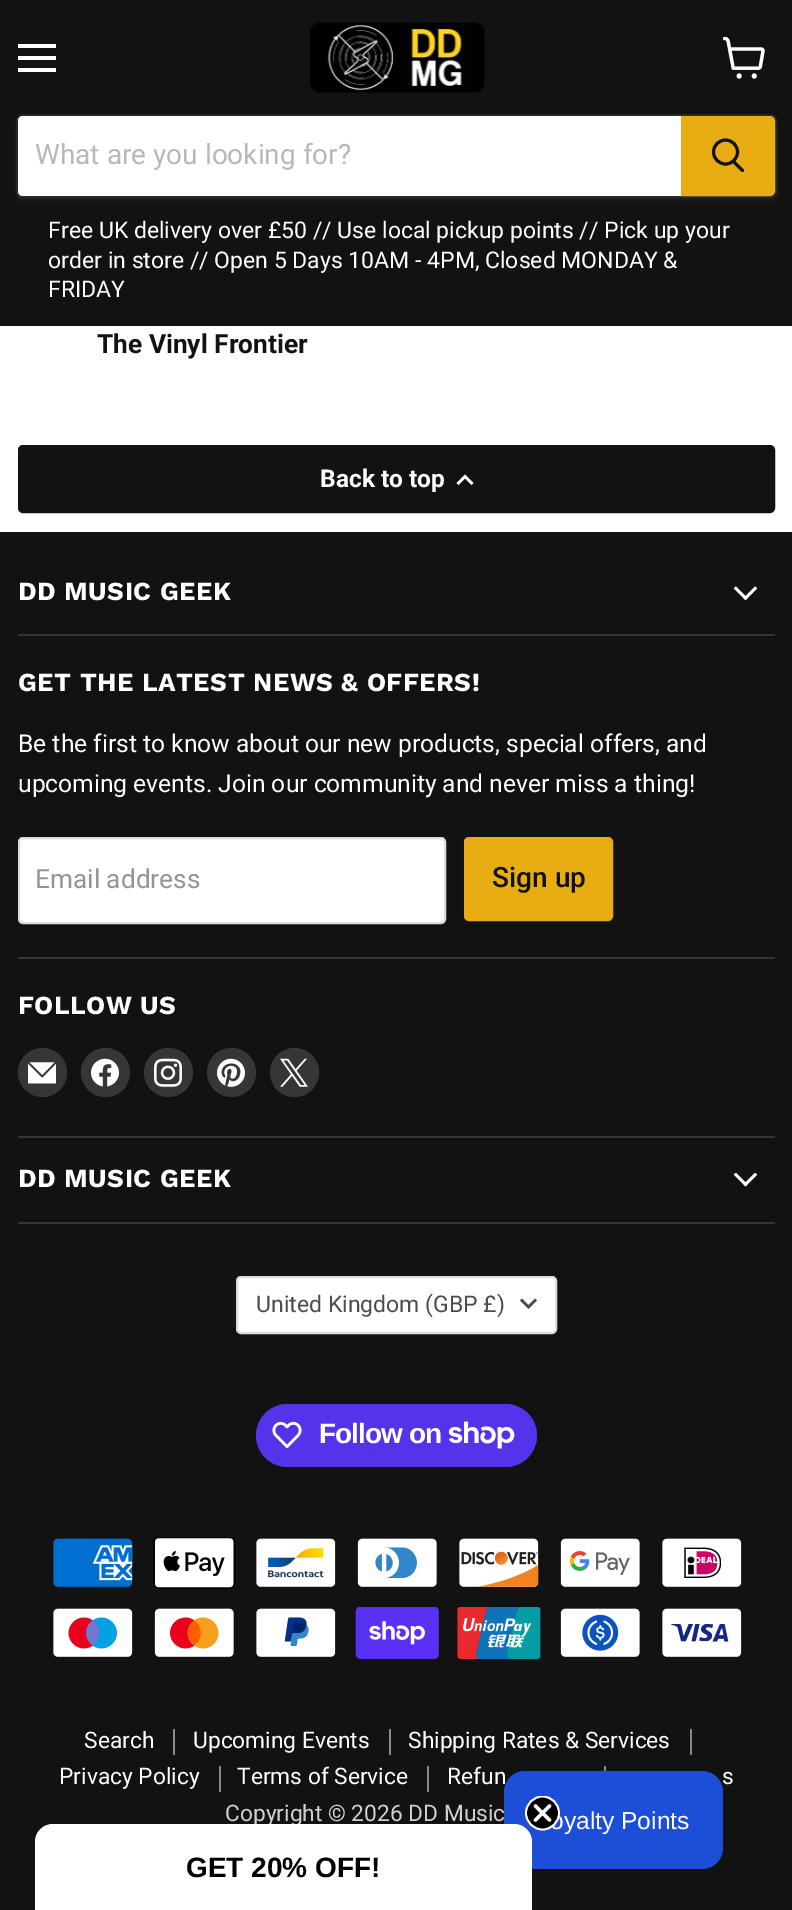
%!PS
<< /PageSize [792 1910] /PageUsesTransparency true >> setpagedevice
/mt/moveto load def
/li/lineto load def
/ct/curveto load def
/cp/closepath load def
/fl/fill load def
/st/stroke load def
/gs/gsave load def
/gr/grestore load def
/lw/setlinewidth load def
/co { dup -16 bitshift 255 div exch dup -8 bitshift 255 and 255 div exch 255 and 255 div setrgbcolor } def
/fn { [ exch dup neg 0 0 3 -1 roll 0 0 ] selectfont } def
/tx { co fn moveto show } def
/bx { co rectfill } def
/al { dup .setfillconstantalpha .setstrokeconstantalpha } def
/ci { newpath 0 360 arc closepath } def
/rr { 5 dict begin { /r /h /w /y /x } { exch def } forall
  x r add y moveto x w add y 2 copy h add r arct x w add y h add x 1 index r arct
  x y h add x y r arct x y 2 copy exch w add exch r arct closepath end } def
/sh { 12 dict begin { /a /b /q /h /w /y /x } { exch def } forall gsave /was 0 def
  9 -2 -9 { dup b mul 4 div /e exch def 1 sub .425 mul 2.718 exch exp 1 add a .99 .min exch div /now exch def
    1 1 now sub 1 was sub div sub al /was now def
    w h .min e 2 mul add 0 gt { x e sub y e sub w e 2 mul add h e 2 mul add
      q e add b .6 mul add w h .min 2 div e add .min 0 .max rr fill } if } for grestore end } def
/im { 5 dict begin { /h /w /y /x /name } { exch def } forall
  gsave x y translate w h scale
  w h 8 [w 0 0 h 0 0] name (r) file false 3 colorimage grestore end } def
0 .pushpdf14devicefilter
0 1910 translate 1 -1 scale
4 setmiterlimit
0 0 792 1910 16#FFFFFF bx
0 0 792 326 16#121212 bx
18 44 38 4 16#FFFFFF bx
18 56 38 4 16#FFFFFF bx
18 68 38 4 16#FFFFFF bx
(media/1.raw) 723 37 42 42 im
(media/2.raw) 310 22 175 71 im
gs
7 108 mt 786 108 li 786 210 li 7 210 li cp 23 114 mt 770 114 li 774 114 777 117 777 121 ct 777 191 li 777 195 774 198 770 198 ct 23 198 li 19 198 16 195 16 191 ct 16 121 li 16 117 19 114 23 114 ct cp eoclip newpath
16#808080 co
16 117 761 84 7 2.5 .11 sh
gr
0.2 al
16#808080 co
2 lw
17 115 759 82 6 rr st
1 al
16#FFFFFF co
23 116 mt 681 116 li 681 196 li 23 196 li 20 196 18 194 18 191 ct 18 121 li 18 118 20 116 23 116 ct cp fl
16#E9AD14 co
682 117 mt 770 117 li 772 117 774 119 774 121 ct 774 191 li 774 193 772 195 770 195 ct 682 195 li cp gs fl gr
st
16#121212 co
3 lw
1 setlinecap
742.5 170.5 mt 734 162 li st
0 setlinecap
725.5 152 12 ci st
19 446 755 66 4 rr gs fl gr
2 lw
st
16#FFFFFF co
2.7 lw
2 setlinecap
465 476.5 mt 458.5 483 li 465 476.5 mt 471.5 483 li st
0 532 792 1378 16#121212 bx
18 634 757 2 16#363636 bx
(media/3.raw) 733 586 25 14 im
18 957 757 2 16#363636 bx
16#FFFFFF co
19 838 426 85 4 rr gs fl gr
16#DDDDDD co
2 lw
0 setlinecap
st
16#E9AD14 co
465 838 147 82 4 rr gs fl gr
st
18 1136 757 2 16#363636 bx
42.5 1072.5 24.5 ci fl
(media/4.raw) 28 1062 28 22 im
105.5 1072.5 24.5 ci fl
(media/5.raw) 91 1058 28 29 im
168.5 1072.5 24.5 ci fl
(media/6.raw) 154 1058 28 29 im
231.5 1072.5 24.5 ci fl
(media/7.raw) 217 1058 28 29 im
294.5 1072.5 24.5 ci fl
(media/8.raw) 280 1058 28 29 im
18 1222 757 2 16#363636 bx
(media/9.raw) 733 1173 25 14 im
16#FFFFFF co
237 1277 319 56 4 rr gs fl gr
16#DDDDDD co
st
16#4D4D4D co
2.7 lw
2 setlinecap
528.5 1307 mt 535 1300.5 li 528.5 1307 mt 522 1300.5 li st
16#5433EB co
256 1404 281 63 31.5 rr fl
(media/10.raw) 272 1421 30 28 im
(media/11.raw) 448 1421 67 28 im
(media/12.raw) 53 1538 80 49 im
(media/13.raw) 153 1537 83 52 im
(media/14.raw) 256 1538 80 49 im
(media/15.raw) 357 1538 80 49 im
(media/16.raw) 459 1538 80 49 im
(media/17.raw) 560 1538 80 49 im
(media/18.raw) 662 1538 80 49 im
(media/19.raw) 53 1608 80 49 im
(media/20.raw) 154 1608 80 49 im
(media/21.raw) 256 1608 80 49 im
(media/22.raw) 355 1607 84 52 im
(media/23.raw) 457 1607 84 52 im
(media/24.raw) 560 1608 80 49 im
(media/25.raw) 662 1608 80 49 im
173 1729 2 26 16#898989 bx
389 1729 2 26 16#898989 bx
690 1729 2 26 16#898989 bx
219 1766 2 26 16#898989 bx
427 1766 2 26 16#898989 bx
604 1766 2 5 16#898989 bx
(What are you looking for?) 35 164 /Roboto-Regular 28 16#B8B8B8 tx
(Free UK delivery over £50 // Use local pickup points // Pick up your) 48 238 /Roboto-Regular 23 16#FFFFFF tx
(order in store // Open 5 Days 10AM - 4PM, Closed MONDAY &) 48 268 /Roboto-Regular 23 16#FFFFFF tx
(FRIDAY) 48 297 /Roboto-Regular 23 16#FFFFFF tx
(The Vinyl Frontier) 97 353 /Roboto-Bold 26.25 16#121212 tx
(Back to top) 320 487 /Roboto-Bold 24.5 16#FFFFFF tx
/WorkSans-Bold 26 fn
18 600 mt .5 0 (DD MUSIC GEEK) ashow
18 691 mt .5 0 (GET THE LATEST NEWS & OFFERS!) ashow
(Be the first to know about our new products, special offers, and) 18 752 /Roboto-Regular 24.6 16#FFFFFF tx
(upcoming events. Join our community and never miss a thing!) 18 792 /Roboto-Regular 24.6 16#FFFFFF tx
(Email address) 35 888 /Roboto-Regular 26.25 16#949494 tx
(Sign up) 492 887 /Roboto-Medium 28 16#121212 tx
/WorkSans-Bold 26 fn
16#FFFFFF co
18 1014 mt .5 0 (FOLLOW US) ashow
18 1187 mt .5 0 (DD MUSIC GEEK) ashow
(United Kingdom \(GBP £\)) 256 1312 /Roboto-Regular 23 16#4D4D4D tx
/LiberationSans-Bold 28 fn
16#FFFFFF co
319 1443 mt -.9 0 (Follow on) ashow
(Search) 84 1748 /Roboto-Regular 22.75 16#FFFFFF tx
(Upcoming Events) 193 1748 /Roboto-Regular 22.75 16#FFFFFF tx
(Shipping Rates & Services) 408 1748 /Roboto-Regular 22.75 16#FFFFFF tx
(Privacy Policy) 59 1784 /Roboto-Regular 22.75 16#FFFFFF tx
(Terms of Service) 237 1784 /Roboto-Regular 22.75 16#FFFFFF tx
(Refun) 447 1784 /Roboto-Regular 22.75 16#FFFFFF tx
(s) 722 1784 /Roboto-Regular 22.75 16#FFFFFF tx
(Copyright © 2026 DD Music) 225 1821 /Roboto-Regular 22.75 16#D0D0D0 tx
16#1D4ED8 co
504 1771 219 98 21 rr fl
(oyalty Points) 550 1829 /LiberationSans-Regular 24.6 16#FFFFFF tx
53 1824 mt 514 1824 li 524 1824 532 1832 532 1842 ct 532 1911 li 35 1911 li 35 1842 li 35 1832 43 1824 53 1824 ct cp fl
16#000000 co
542.5 1813 16.5 ci fl
gs
525 1796 35 35 rectclip
16#FFFFFF co
1.8 lw
0 setlinecap
542.5 1813 16.5 ci st
gr
16#FFFFFF co
3.5 lw
1 setlinecap
1 setlinejoin
535.5 1806 mt 549.5 1820 li 535.5 1820 mt 549.5 1806 li cp st
(GET 20% OFF!) 186 1877 /LiberationSans-Bold 28 16#000000 tx
.poppdf14devicefilter showpage
